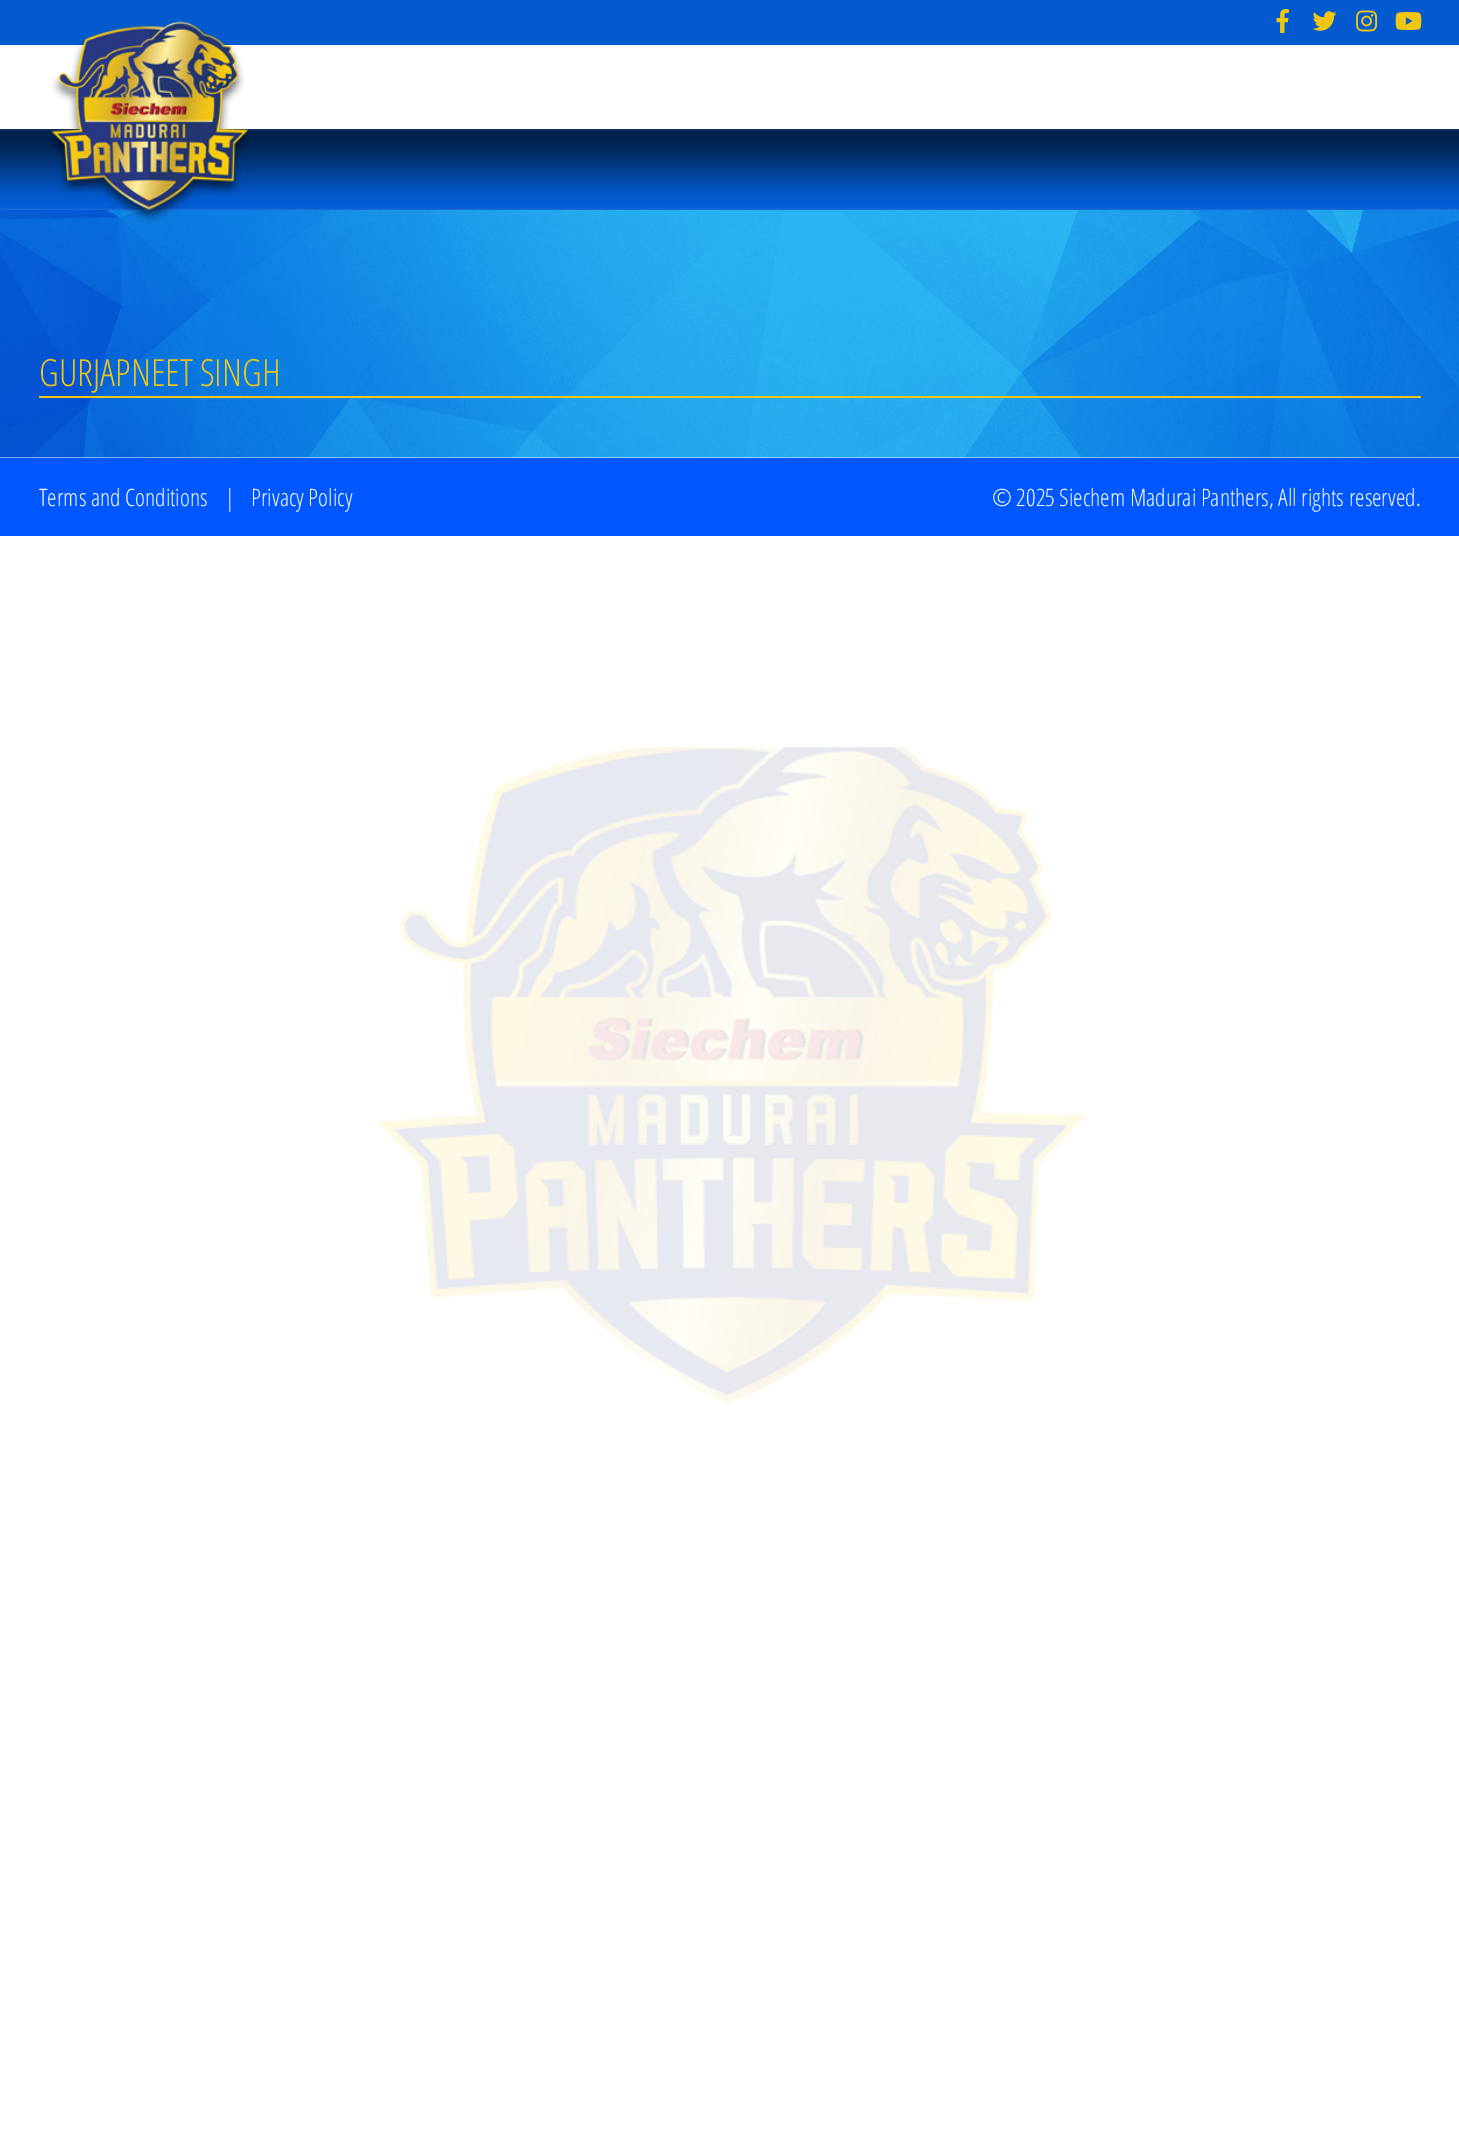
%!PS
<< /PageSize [1459 2150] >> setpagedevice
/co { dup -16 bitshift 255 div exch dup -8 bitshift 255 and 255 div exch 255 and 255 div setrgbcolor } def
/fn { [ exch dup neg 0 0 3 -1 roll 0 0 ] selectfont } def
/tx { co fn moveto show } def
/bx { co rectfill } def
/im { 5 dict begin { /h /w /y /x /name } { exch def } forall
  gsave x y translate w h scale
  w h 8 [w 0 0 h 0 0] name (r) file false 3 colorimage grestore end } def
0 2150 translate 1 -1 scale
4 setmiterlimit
0 0 1459 2150 16#FFFFFF bx
(media/1.raw) 375 747 711 657 im
(media/2.raw) 0 129 1459 81 im
0 0 1459 45 16#025ACE bx
(media/8.raw) 0 210 1459 248 im
(media/3.raw) 50 21 200 202 im
(media/4.raw) 1276 9 13 24 im
(media/5.raw) 1312 11 25 20 im
(media/6.raw) 1356 10 22 22 im
(media/7.raw) 1395 12 27 18 im
39 396 1382 2 16#F1C613 bx
0 458 1459 78 16#0057FF bx
(GURJAPNEET SINGH) 39 386 /OpenSansCondensed-Light 37.5 16#F1C613 tx
(Terms and Conditions) 39 506 /OpenSansCondensed-Light 24 16#FFFFFF tx
(|) 225 506 /OpenSansCondensed-Light 24 16#FFFFFF tx
(Privacy Policy) 251 506 /OpenSansCondensed-Light 24 16#FFFFFF tx
(© 2025 Siechem Madurai Panthers, All rights reserved.) 992 506 /OpenSansCondensed-Light 24 16#FFFFFF tx
showpage
